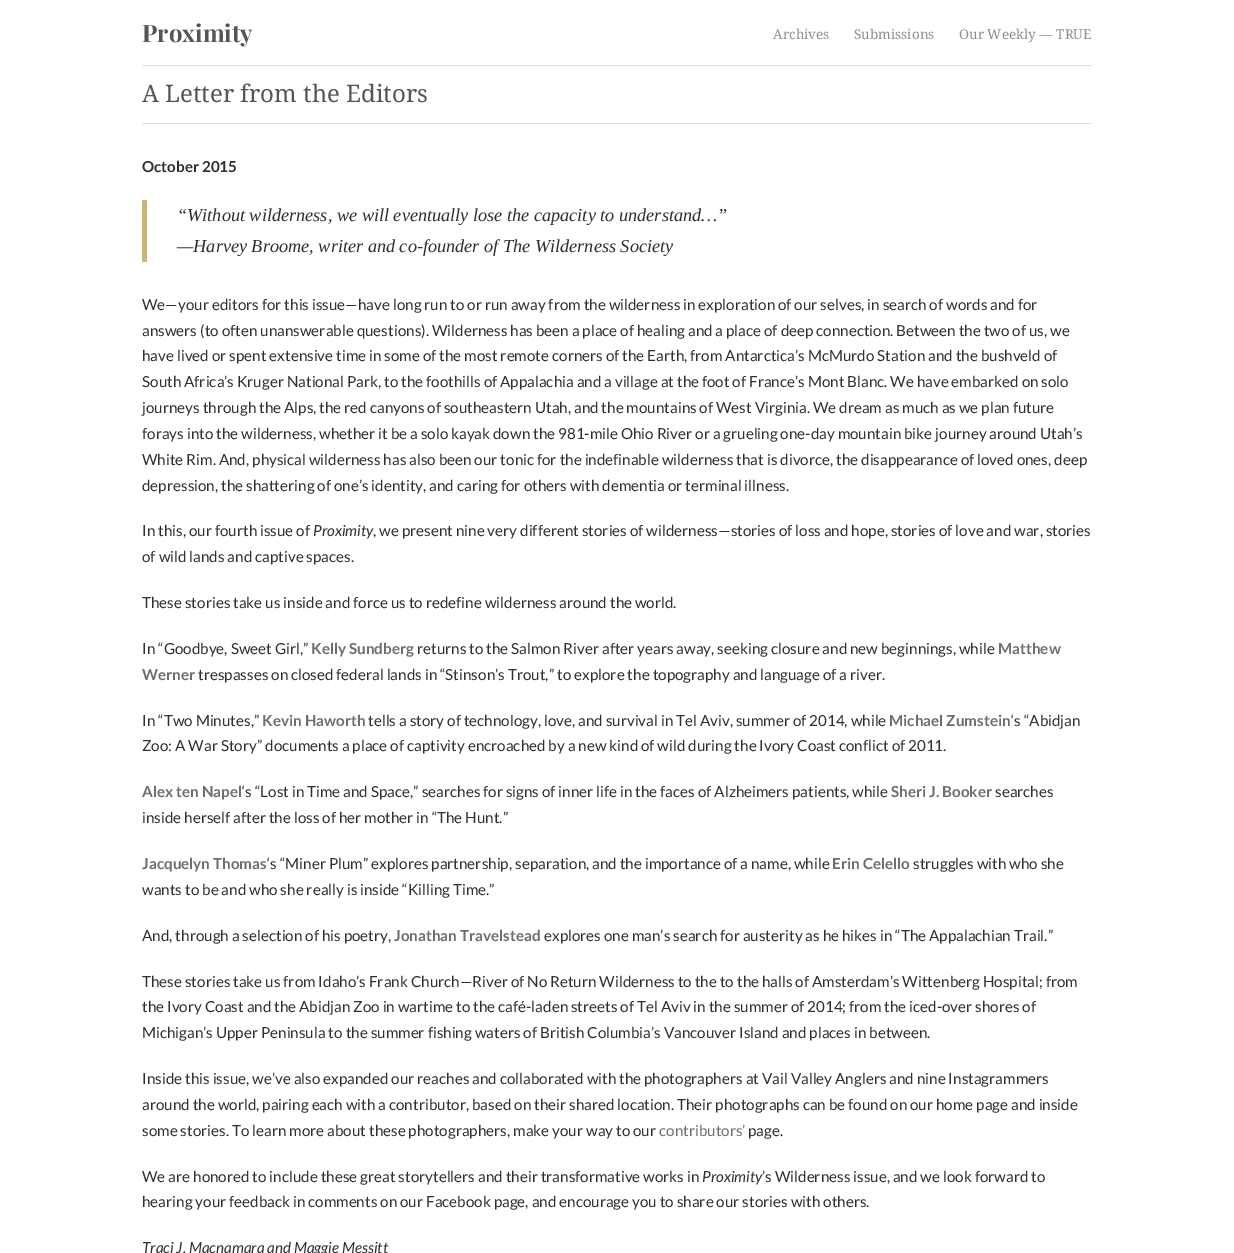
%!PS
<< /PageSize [1234 1253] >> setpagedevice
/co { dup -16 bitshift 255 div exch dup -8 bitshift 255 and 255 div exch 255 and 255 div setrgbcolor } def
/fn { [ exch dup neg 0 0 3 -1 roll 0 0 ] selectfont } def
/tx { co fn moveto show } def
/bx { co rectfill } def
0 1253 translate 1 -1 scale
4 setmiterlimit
0 0 1234 1253 16#FFFFFF bx
142 65 950 1 16#DFDFDE bx
142 123 950 1 16#DFDFDE bx
142 200 5 62 16#CCB676 bx
(Proximity) 142 42 /PlayfairDisplay-Bold 24 16#555555 tx
(Archives) 773 39 /DroidSerif-Regular 13.5 16#8F8F8F tx
(Submissions) 854 39 /DroidSerif-Regular 13.5 16#8F8F8F tx
(Our Weekly — TRUE) 959 39 /DroidSerif-Regular 13.5 16#8F8F8F tx
(A Letter from the Editors) 142 102 /DroidSerif-Regular 24 16#555555 tx
(October 2015) 142 172 /Lato-Bold 15.2 16#2D3033 tx
(“Without wilderness, we will eventually lose the capacity to understand…”) 177 221 /LiberationSerif-Italic 18.25 16#2D3033 tx
(—Harvey Broome, writer and co-founder of The Wilderness Society) 177 252 /LiberationSerif-Italic 18.25 16#2D3033 tx
(We—your editors for this issue—have long run to or run away from the wilderness in exploration of our selves, in search of words and for) 142 310 /Lato-Regular 15.2 16#2D3033 tx
(answers \(to often unanswerable questions\). Wilderness has been a place of healing and a place of deep connection. Between the two of us, we) 142 336 /Lato-Regular 15.2 16#2D3033 tx
(have lived or spent extensive time in some of the most remote corners of the Earth, from Antarctica’s McMurdo Station and the bushveld of) 142 361 /Lato-Regular 15.2 16#2D3033 tx
(South Africa’s Kruger National Park, to the foothills of Appalachia and a village at the foot of France’s Mont Blanc. We have embarked on solo) 142 387 /Lato-Regular 15.2 16#2D3033 tx
(journeys through the Alps, the red canyons of southeastern Utah, and the mountains of West Virginia. We dream as much as we plan future) 142 413 /Lato-Regular 15.2 16#2D3033 tx
(forays into the wilderness, whether it be a solo kayak down the 981-mile Ohio River or a grueling one-day mountain bike journey around Utah’s) 142 439 /Lato-Regular 15.2 16#2D3033 tx
(White Rim. And, physical wilderness has also been our tonic for the indefinable wilderness that is divorce, the disappearance of loved ones, deep) 142 465 /Lato-Regular 15.2 16#2D3033 tx
(depression, the shattering of one’s identity, and caring for others with dementia or terminal illness.) 142 491 /Lato-Regular 15.2 16#2D3033 tx
(In this, our fourth issue of) 142 536 /Lato-Regular 15.2 16#2D3033 tx
(Proximity) 313 536 /Lato-Italic 15.2 16#2D3033 tx
(, we present nine very different stories of wilderness—stories of loss and hope, stories of love and war, stories) 373 536 /Lato-Regular 15.2 16#2D3033 tx
(of wild lands and captive spaces.) 142 562 /Lato-Regular 15.2 16#2D3033 tx
(These stories take us inside and force us to redefine wilderness around the world.) 142 608 /Lato-Regular 15.2 16#2D3033 tx
(In “Goodbye, Sweet Girl,”) 142 654 /Lato-Regular 15.2 16#2D3033 tx
(Kelly Sundberg) 311 654 /Lato-Bold 15.2 16#6C6E70 tx
(returns to the Salmon River after years away, seeking closure and new beginnings, while) 417 654 /Lato-Regular 15.2 16#2D3033 tx
(Matthew) 998 654 /Lato-Bold 15.2 16#6C6E70 tx
(Werner) 142 680 /Lato-Bold 15.2 16#6C6E70 tx
(trespasses on closed federal lands in “Stinson’s Trout,” to explore the topography and language of a river.) 198 680 /Lato-Regular 15.2 16#2D3033 tx
(In “Two Minutes,”) 142 726 /Lato-Regular 15.2 16#2D3033 tx
(Kevin Haworth) 262 726 /Lato-Bold 15.2 16#6C6E70 tx
(tells a story of technology, love, and survival in Tel Aviv, summer of 2014, while) 368 726 /Lato-Regular 15.2 16#2D3033 tx
(Michael Zumstein) 889 726 /Lato-Bold 15.2 16#6C6E70 tx
(‘s “Abidjan) 1011 726 /Lato-Regular 15.2 16#2D3033 tx
(Zoo: A War Story” documents a place of captivity encroached by a new kind of wild during the Ivory Coast conflict of 2011.) 142 751 /Lato-Regular 15.2 16#2D3033 tx
(Alex ten Napel) 142 797 /Lato-Bold 15.2 16#6C6E70 tx
(‘s “Lost in Time and Space,” searches for signs of inner life in the faces of Alzheimers patients, while) 242 797 /Lato-Regular 15.2 16#2D3033 tx
(Sheri J. Booker) 891 797 /Lato-Bold 15.2 16#6C6E70 tx
(searches) 995 797 /Lato-Regular 15.2 16#2D3033 tx
(inside herself after the loss of her mother in “The Hunt.”) 142 823 /Lato-Regular 15.2 16#2D3033 tx
(Jacquelyn Thomas) 142 869 /Lato-Bold 15.2 16#6C6E70 tx
(‘s “Miner Plum” explores partnership, separation, and the importance of a name, while) 267 869 /Lato-Regular 15.2 16#2D3033 tx
(Erin Celello) 832 869 /Lato-Bold 15.2 16#6C6E70 tx
(struggles with who she) 913 869 /Lato-Regular 15.2 16#2D3033 tx
(wants to be and who she really is inside “Killing Time.”) 142 895 /Lato-Regular 15.2 16#2D3033 tx
(And, through a selection of his poetry,) 142 941 /Lato-Regular 15.2 16#2D3033 tx
(Jonathan Travelstead) 394 941 /Lato-Bold 15.2 16#6C6E70 tx
(explores one man’s search for austerity as he hikes in “The Appalachian Trail.”) 544 941 /Lato-Regular 15.2 16#2D3033 tx
(These stories take us from Idaho’s Frank Church—River of No Return Wilderness to the to the halls of Amsterdam’s Wittenberg Hospital; from) 142 987 /Lato-Regular 15.2 16#2D3033 tx
(the Ivory Coast and the Abidjan Zoo in wartime to the café-laden streets of Tel Aviv in the summer of 2014; from the iced-over shores of) 142 1012 /Lato-Regular 15.2 16#2D3033 tx
(Michigan’s Upper Peninsula to the summer fishing waters of British Columbia’s Vancouver Island and places in between.) 142 1038 /Lato-Regular 15.2 16#2D3033 tx
(Inside this issue, we’ve also expanded our reaches and collaborated with the photographers at Vail Valley Anglers and nine Instagrammers) 142 1084 /Lato-Regular 15.2 16#2D3033 tx
(around the world, pairing each with a contributor, based on their shared location. Their photographs can be found on our home page and inside) 142 1110 /Lato-Regular 15.2 16#2D3033 tx
(some stories. To learn more about these photographers, make your way to our) 142 1136 /Lato-Regular 15.2 16#2D3033 tx
(contributors’) 659 1136 /Lato-Regular 15.2 16#6C6E70 tx
(page.) 748 1136 /Lato-Regular 15.2 16#2D3033 tx
(We are honored to include these great storytellers and their transformative works in) 142 1182 /Lato-Regular 15.2 16#2D3033 tx
(Proximity) 702 1182 /Lato-Italic 15.2 16#2D3033 tx
(’s Wilderness issue, and we look forward to) 762 1182 /Lato-Regular 15.2 16#2D3033 tx
(hearing your feedback in comments on our Facebook page, and encourage you to share our stories with others.) 142 1207 /Lato-Regular 15.2 16#2D3033 tx
(Traci J. Macnamara and Maggie Messitt) 142 1253 /Lato-Italic 15.2 16#2D3033 tx
showpage
